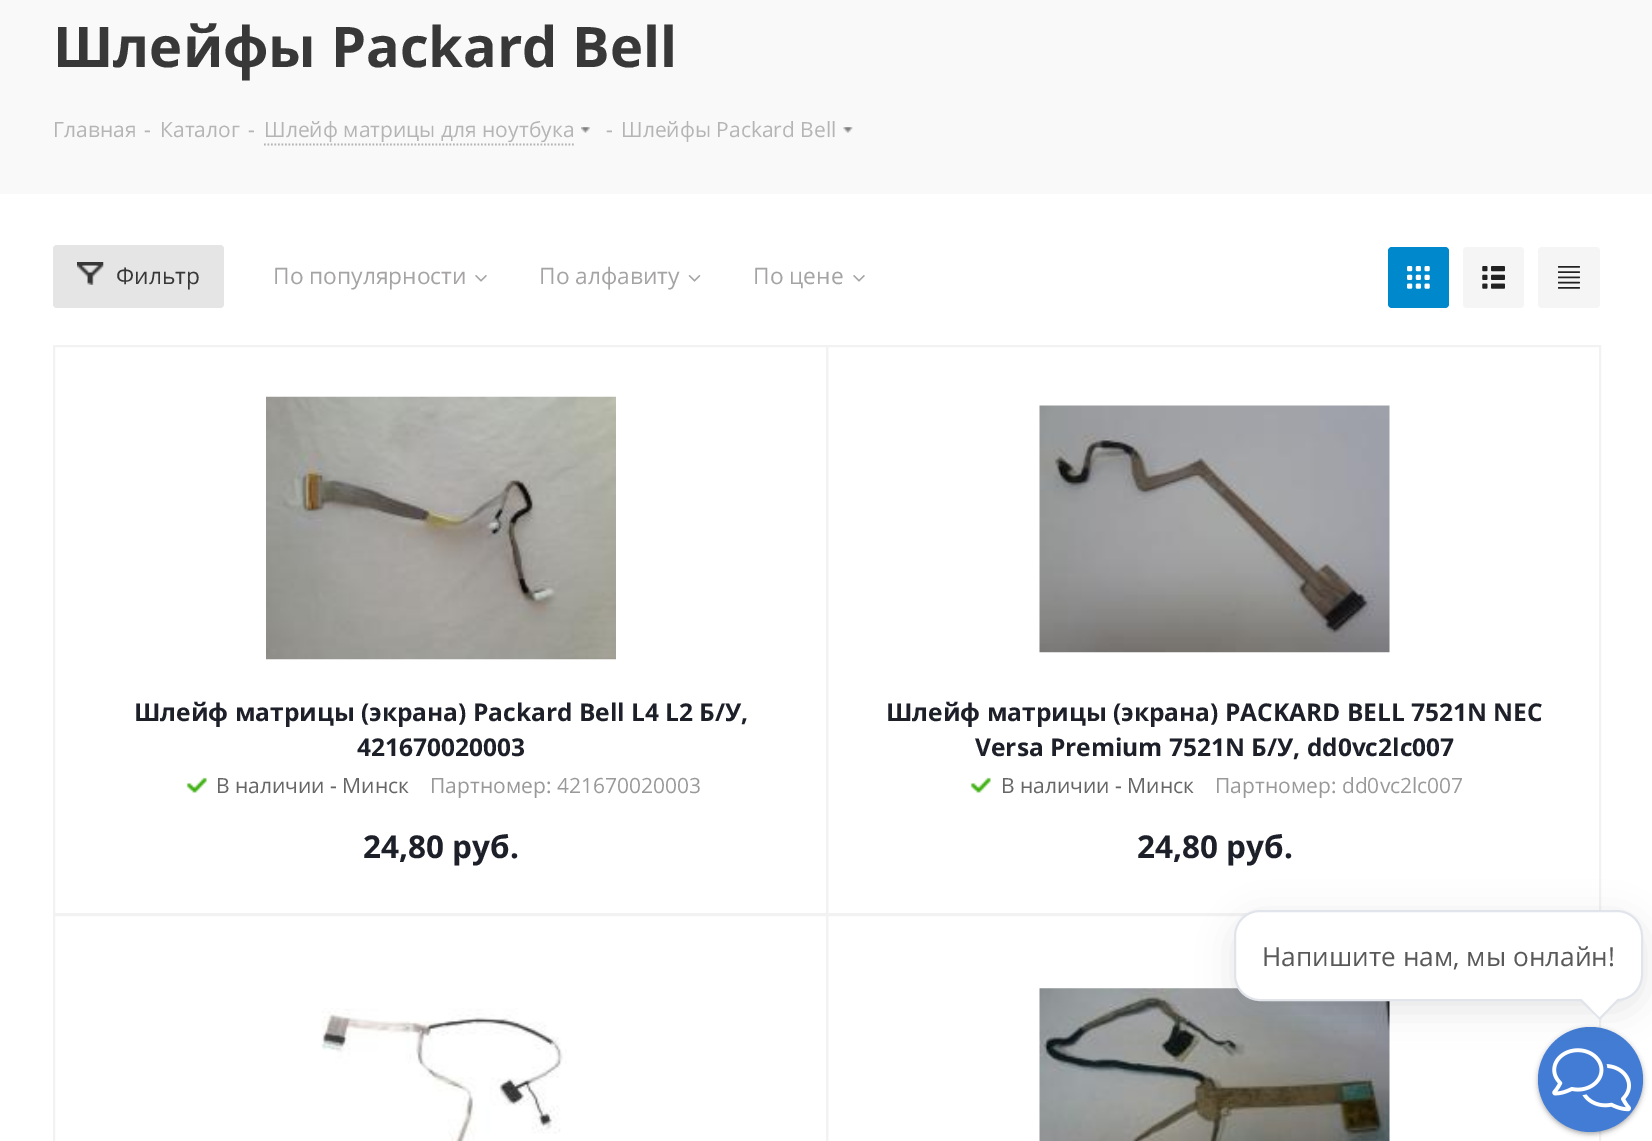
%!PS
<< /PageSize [1652 1141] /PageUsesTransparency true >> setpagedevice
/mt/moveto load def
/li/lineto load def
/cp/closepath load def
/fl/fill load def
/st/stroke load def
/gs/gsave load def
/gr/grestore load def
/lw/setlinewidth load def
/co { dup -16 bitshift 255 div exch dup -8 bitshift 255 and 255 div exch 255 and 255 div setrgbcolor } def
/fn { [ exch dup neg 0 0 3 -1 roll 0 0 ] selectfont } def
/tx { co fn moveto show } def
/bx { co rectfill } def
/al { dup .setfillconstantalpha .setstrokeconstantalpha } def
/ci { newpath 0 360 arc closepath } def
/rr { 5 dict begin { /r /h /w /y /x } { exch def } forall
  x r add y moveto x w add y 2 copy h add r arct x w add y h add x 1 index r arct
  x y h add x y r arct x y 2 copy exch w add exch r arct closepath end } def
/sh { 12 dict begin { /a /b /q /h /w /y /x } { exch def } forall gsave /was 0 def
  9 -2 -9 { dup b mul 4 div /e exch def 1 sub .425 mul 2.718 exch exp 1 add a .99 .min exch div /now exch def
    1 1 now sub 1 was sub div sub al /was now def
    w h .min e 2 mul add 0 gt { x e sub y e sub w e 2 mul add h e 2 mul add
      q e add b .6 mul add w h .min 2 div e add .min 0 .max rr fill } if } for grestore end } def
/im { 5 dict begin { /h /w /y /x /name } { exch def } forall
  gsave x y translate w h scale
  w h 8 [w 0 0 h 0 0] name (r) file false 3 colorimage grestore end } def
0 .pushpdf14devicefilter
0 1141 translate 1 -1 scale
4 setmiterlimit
0 0 1652 1141 16#FFFFFF bx
0 0 1652 194 16#F9F9F9 bx
16#B4B4B4 co
1.8 lw
[1.75 1.75] 0 setdash
264 144.5 mt 574 144.5 li st
(media/1.raw) 581 127 9 6 im
(media/2.raw) 843 127 10 6 im
16#E5E5E5 co
53 245 171 63 4 rr fl
(media/3.raw) 77 262 27 23 im
(media/4.raw) 475 275 12 7 im
(media/5.raw) 688 275 13 7 im
(media/4.raw) 853 275 12 7 im
16#0088CC co
1388 247 61 61 4 rr fl
(media/6.raw) 1407 266 23 23 im
16#F5F5F5 co
1463 247 61 61 4 rr fl
(media/7.raw) 1482 266 23 23 im
1538 247 62 61 4 rr fl
(media/8.raw) 1558 266 22 23 im
16#F2F2F2 co
2 lw
[] 0 setdash
54 346 773 568 rectstroke
(media/9.raw) 266 396 350 264 im
(media/10.raw) 186 777 21 16 im
827 346 773 568 rectstroke
(media/11.raw) 1039 405 351 248 im
(media/10.raw) 970 777 21 16 im
54 915 773 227 rectstroke
(media/12.raw) 321 1008 246 133 im
827 915 773 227 rectstroke
(media/13.raw) 1039 988 351 153 im
16#000000 co
1538 1029 105 105 52.5 2.5 .33 sh
16#427CD4 co
1590.5 1079.5 52.5 ci fl
(media/14.raw) 1552 1048 79 64 im
16#000000 co
1234 919 409 91 26 17.5 .1 sh
16#FFFFFF co
1235 911 407 89 25 rr gs fl gr
16#E1E5EB co
st
1578 999 mt 1620 999 li 1600 1020 li cp fl
16#FFFFFF co
1582 999 mt 1617 999 li 1599.5 1017 li cp fl
(Шлейфы Packard Bell) 53 67 /OpenSans-Bold 56 16#383838 tx
(Главная) 53 137 /OpenSans-Regular 21 16#B6B5B5 tx
(-) 144 137 /OpenSans-Regular 21 16#B6B5B5 tx
(Каталог) 160 137 /OpenSans-Regular 21 16#B6B5B5 tx
(-) 248 137 /OpenSans-Regular 21 16#B6B5B5 tx
(Шлейф матрицы для ноутбука) 264 137 /OpenSans-Regular 21 16#B6B5B5 tx
(-) 606 137 /OpenSans-Regular 21 16#B6B5B5 tx
(Шлейфы Packard Bell) 621 137 /OpenSans-Regular 21 16#B6B5B5 tx
(Фильтр) 116 284 /OpenSans-Regular 22.75 16#383838 tx
(По популярности) 273 284 /OpenSans-Regular 22.75 16#A5A3A3 tx
(По алфавиту) 539 284 /OpenSans-Regular 22.75 16#A5A3A3 tx
(По цене) 753 284 /OpenSans-Regular 22.75 16#A5A3A3 tx
(Шлейф матрицы \(экрана\) Packard Bell L4 L2 Б/У,) 134 721 /OpenSans-Bold 24.5 16#1D2029 tx
(421670020003) 357 756 /OpenSans-Bold 24.5 16#1D2029 tx
(В наличии - Минск) 216 793 /OpenSans-Regular 21 16#666666 tx
(Партномер: 421670020003) 430 793 /OpenSans-Regular 21 16#999999 tx
(24,80 руб.) 363 858 /OpenSans-Bold 31.5 16#1D2029 tx
(Шлейф матрицы \(экрана\) PACKARD BELL 7521N NEC) 886 721 /OpenSans-Bold 24.5 16#1D2029 tx
(Versa Premium 7521N Б/У, dd0vc2lc007) 975 756 /OpenSans-Bold 24.5 16#1D2029 tx
(В наличии - Минск) 1001 793 /OpenSans-Regular 21 16#666666 tx
(Партномер: dd0vc2lc007) 1215 793 /OpenSans-Regular 21 16#999999 tx
(24,80 руб.) 1137 858 /OpenSans-Bold 31.5 16#1D2029 tx
(Напишите нам, мы онлайн!) 1262 966 /OpenSans-Regular 26.25 16#595959 tx
.poppdf14devicefilter showpage
